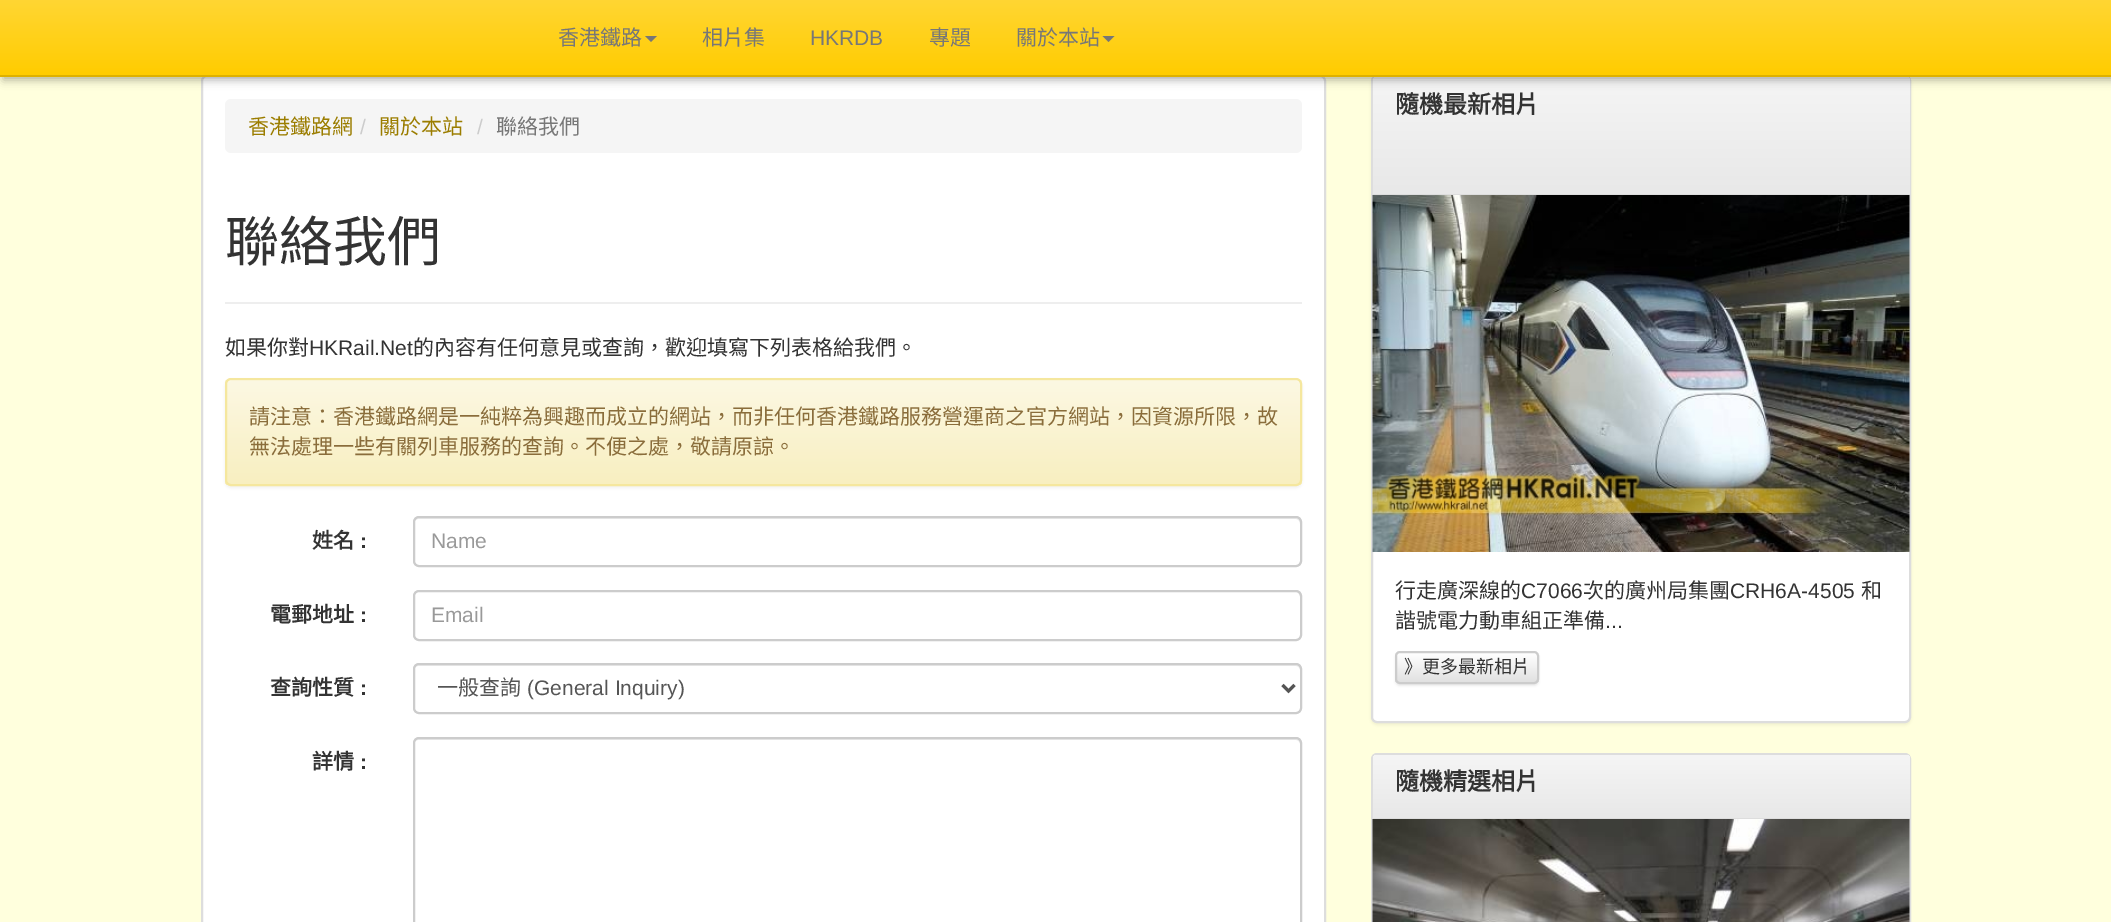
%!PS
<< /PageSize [2111 922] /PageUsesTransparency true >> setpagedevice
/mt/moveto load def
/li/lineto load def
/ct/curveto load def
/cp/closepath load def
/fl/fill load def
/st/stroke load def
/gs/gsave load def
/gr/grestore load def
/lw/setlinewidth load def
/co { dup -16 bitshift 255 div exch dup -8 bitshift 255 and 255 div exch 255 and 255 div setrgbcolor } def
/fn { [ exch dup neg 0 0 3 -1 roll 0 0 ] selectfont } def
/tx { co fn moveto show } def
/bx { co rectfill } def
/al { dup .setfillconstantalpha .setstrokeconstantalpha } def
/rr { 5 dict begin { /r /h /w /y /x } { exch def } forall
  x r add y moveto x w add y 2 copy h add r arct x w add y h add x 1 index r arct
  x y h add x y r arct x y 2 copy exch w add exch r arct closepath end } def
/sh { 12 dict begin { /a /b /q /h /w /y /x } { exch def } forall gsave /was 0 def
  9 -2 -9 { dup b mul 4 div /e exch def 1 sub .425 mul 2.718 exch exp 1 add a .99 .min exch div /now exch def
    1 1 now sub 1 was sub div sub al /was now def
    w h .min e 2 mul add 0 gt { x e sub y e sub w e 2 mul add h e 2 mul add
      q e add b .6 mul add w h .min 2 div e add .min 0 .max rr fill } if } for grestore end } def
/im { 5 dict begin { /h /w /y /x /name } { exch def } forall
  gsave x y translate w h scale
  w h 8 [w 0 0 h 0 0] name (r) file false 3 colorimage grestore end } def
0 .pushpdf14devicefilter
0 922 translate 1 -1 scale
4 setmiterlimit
0 0 2111 922 16#FFFFDD bx
16#FFFFFF co
202 76 1123 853 5 rr gs fl gr
16#DDDDDD co
2 lw
st
16#000000 co
1371 77 540 648 6 1.5 .05 sh
16#FFFFFF co
1372 76 538 646 5 rr gs fl gr
16#DDDDDD co
st
gs 1378 77 mt 1905 77 li 1908 77 1910 79 1910 82 ct 1910 194 li 1373 194 li 1373 82 li 1373 79 1375 77 1378 77 ct cp clip newpath
<< /ShadingType 2 /ColorSpace /DeviceRGB /Coords [1641 76 1641 194] /Extend [true true] /Function << /FunctionType 2 /Domain [0 1] /C0 [.961 .961 .961] /C1 [.91 .91 .91] /N 1 >> >> shfill gr
16#000000 co
3 3 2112 77 0 4.5 .3 sh
gs 0 0 mt 2111 0 li 2111 75 li 0 75 li cp clip newpath
<< /ShadingType 2 /ColorSpace /DeviceRGB /Coords [1056 0 1056 75] /Extend [true true] /Function << /FunctionType 2 /Domain [0 1] /C0 [1 .839 .2] /C1 [1 .8 0] /N 1 >> >> shfill gr
0 75 2111 2 16#DEB100 bx
16#777777 co
645 36 mt 657 36 li 651 42 li cp fl
1102.5 36 mt 1114.5 36 li 1108.5 42 li cp fl
16#F5F5F5 co
225 99 1077 54 6 rr fl
225 302 1077 2 16#EEEEEE bx
16#000000 co
225 380 1077 108 6 1.5 .05 sh
gs
225 378 1077 108 6 rr clip newpath
gs 225 380 mt 1302 380 li 1302 485 li 225 485 li cp clip newpath
<< /ShadingType 2 /ColorSpace /DeviceRGB /Coords [764 379 764 485] /Extend [true true] /Function << /FunctionType 2 /Domain [0 1] /C0 [.988 .973 .89] /C1 [.973 .937 .753] /N 1 >> >> shfill gr
gr
0.25 al
16#FFFFFF co
231 381 mt 1296 381 li 1298 381 1300 383 1300 386 ct 1300 483 li 1301 482 1301 481 1301 480 ct 1301 385 li 1301 382 1299 380 1296 380 ct 232 380 li 230 380 229 381 228 382 ct cp fl
1 al
16#F5E79E co
226 379 1075 106 5 rr st
16#ECECEC co
418 519 mt 1296 519 li 1298 519 1300 521 1300 524 ct 1300 562 li 1299 565 li 1300 564 1301 562 1301 561 ct 1301 523 li 1301 520 1299 518 1296 518 ct 419 518 li 416 518 414 520 414 523 ct 414 524 li 414 521 416 519 418 519 ct cp fl
16#CCCCCC co
414 517 887 49 5 rr st
16#ECECEC co
418 592 mt 1296 592 li 1298 592 1300 595 1300 597 ct 1300 637 li 1301 636 1301 635 1301 634 ct 1301 596 li 1301 593 1299 591 1296 591 ct 419 591 li 416 591 414 593 414 596 ct 414 597 li 414 595 416 592 418 592 ct cp fl
16#CCCCCC co
414 591 887 49 5 rr st
16#ECECEC co
418 666 mt 1296 666 li 1298 666 1300 668 1300 670 ct 1300 711 li 1301 710 1301 709 1301 708 ct 1301 670 li 1301 667 1299 665 1296 665 ct 419 665 li 416 665 414 667 414 670 ct 414 668 416 666 418 666 ct cp fl
16#CCCCCC co
414 664 887 49 5 rr st
16#555555 co
3 lw
1282.5 685 mt 1288.5 691 li 1294.5 685 li st
16#ECECEC co
418 740 mt 1296 740 li 1298 740 1300 742 1300 744 ct 1300 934 li 1301 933 1301 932 1301 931 ct 1301 743 li 1301 740 1299 738 1296 738 ct 419 738 li 416 738 414 740 414 743 ct 414 744 li 414 742 416 740 418 740 ct cp fl
16#CCCCCC co
2 lw
414 738 887 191 5 rr st
1373 194 537 2 16#DDDDDD bx
(media/1.raw) 1372 195 538 357 im
16#000000 co
1395 653 144 33 5 1 .07 sh
gs
1395 651 144 33 5 rr clip newpath
gs 1395 653 mt 1539 653 li 1539 683 li 1395 683 li cp clip newpath
<< /ShadingType 2 /ColorSpace /DeviceRGB /Coords [1467 653 1467 683] /Extend [true true] /Function << /FunctionType 2 /Domain [0 1] /C0 [1 1 1] /C1 [.878 .878 .878] /N 1 >> >> shfill gr
gr
16#CCCCCC co
1396 652 142 31 4 rr st
16#FFFFFF co
1372 754 538 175 5 rr gs fl gr
16#DDDDDD co
st
gs 1378 755 mt 1905 755 li 1908 755 1910 757 1910 760 ct 1910 818 li 1373 818 li 1373 760 li 1373 757 1375 755 1378 755 ct cp clip newpath
<< /ShadingType 2 /ColorSpace /DeviceRGB /Coords [1641 755 1641 818] /Extend [true true] /Function << /FunctionType 2 /Domain [0 1] /C0 [.961 .961 .961] /C1 [.91 .91 .91] /N 1 >> >> shfill gr
1373 818 537 2 16#DDDDDD bx
(media/2.raw) 1372 819 538 103 im
(香港鐵路) 558 45 /NotoSansCJKTC-Regular 21 16#777777 tx
(相片集) 702 45 /NotoSansCJKTC-Regular 21 16#777777 tx
(HKRDB) 810 45 /LiberationSans-Regular 21 16#777777 tx
(專題) 929 45 /NotoSansCJKTC-Regular 21 16#777777 tx
(關於本站) 1016 45 /NotoSansCJKTC-Regular 21 16#777777 tx
(香港鐵路網) 248 134 /NotoSansCJKTC-Regular 21 16#9B7D00 tx
(/) 360 134 /LiberationSans-Regular 21 16#CCCCCC tx
(關於本站) 379 134 /NotoSansCJKTC-Regular 21 16#9B7D00 tx
(/) 477 134 /LiberationSans-Regular 21 16#CCCCCC tx
(聯絡我們) 496 134 /NotoSansCJKTC-Regular 21 16#777777 tx
(聯絡我們) 225 261 /NotoSansCJKTC-Regular 54 16#333333 tx
(如果你對) 225 355 /NotoSansCJKTC-Regular 21 16#333333 tx
(HKRail.Net) 309 355 /LiberationSans-Regular 21 16#333333 tx
(的內容有任何意見或查詢，歡迎填寫下列表格給我們。) 413 355 /NotoSansCJKTC-Regular 21 16#333333 tx
(請注意：香港鐵路網是一純粹為興趣而成立的網站，而非任何香港鐵路服務營運商之官方網站，因資源所限，故) 249 424 /NotoSansCJKTC-Regular 21 16#8A6D3B tx
(無法處理一些有關列車服務的查詢。不便之處，敬請原諒。) 249 454 /NotoSansCJKTC-Regular 21 16#8A6D3B tx
(姓名) 312 548 /NotoSansCJKTC-Bold 21 16#333333 tx
(:) 360 548 /LiberationSans-Bold 21 16#333333 tx
(Name) 431 548 /LiberationSans-Regular 21 16#999999 tx
(電郵地址) 270 622 /NotoSansCJKTC-Bold 21 16#333333 tx
(:) 360 622 /LiberationSans-Bold 21 16#333333 tx
(Email) 431 622 /LiberationSans-Regular 21 16#999999 tx
(查詢性質) 270 695 /NotoSansCJKTC-Bold 21 16#333333 tx
(:) 360 695 /LiberationSans-Bold 21 16#333333 tx
(一般查詢) 437 695 /NotoSansCJKTC-Regular 21 16#555555 tx
(\(General Inquiry\)) 527 695 /LiberationSans-Regular 21 16#555555 tx
(詳情) 312 769 /NotoSansCJKTC-Bold 21 16#333333 tx
(:) 360 769 /LiberationSans-Bold 21 16#333333 tx
(隨機最新相片) 1395 113 /NotoSansCJKTC-Bold 24 16#333333 tx
(行走廣深線的) 1395 598 /NotoSansCJKTC-Regular 21 16#333333 tx
(C7066) 1521 598 /LiberationSans-Regular 21 16#333333 tx
(次的廣州局集團) 1583 598 /NotoSansCJKTC-Regular 21 16#333333 tx
(CRH6A-4505) 1730 598 /LiberationSans-Regular 21 16#333333 tx
(和) 1861 598 /NotoSansCJKTC-Regular 21 16#333333 tx
(諧號電力動車組正準備) 1395 628 /NotoSansCJKTC-Regular 21 16#333333 tx
(...) 1605 628 /LiberationSans-Regular 21 16#333333 tx
(》更多最新相片) 1404 673 /NotoSansCJKTC-Regular 18 16#333333 tx
(隨機精選相片) 1395 790 /NotoSansCJKTC-Bold 24 16#333333 tx
.poppdf14devicefilter showpage
